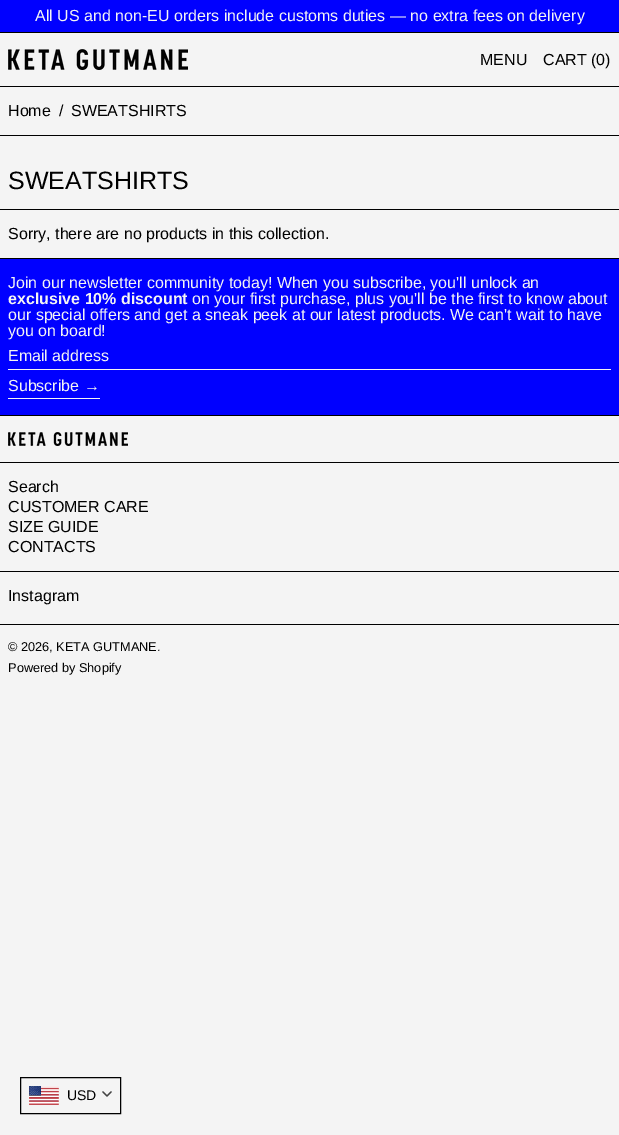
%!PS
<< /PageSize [619 1135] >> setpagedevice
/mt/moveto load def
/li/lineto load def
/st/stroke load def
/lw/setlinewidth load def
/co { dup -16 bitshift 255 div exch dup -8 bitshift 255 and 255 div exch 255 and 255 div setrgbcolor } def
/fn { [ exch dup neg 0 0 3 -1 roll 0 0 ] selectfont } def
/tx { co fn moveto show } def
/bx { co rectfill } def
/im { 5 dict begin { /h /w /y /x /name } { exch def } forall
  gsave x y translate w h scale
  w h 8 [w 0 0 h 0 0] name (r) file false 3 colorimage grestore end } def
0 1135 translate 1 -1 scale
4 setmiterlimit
0 0 619 1135 16#F4F4F4 bx
0 0 619 32 16#0000FF bx
0 32 619 1 16#000000 bx
0 86 619 1 16#000000 bx
(media/1.raw) 8 49 180 21 im
0 135 619 1 16#000000 bx
0 209 619 1 16#000000 bx
0 259 619 156 16#0000FF bx
0 258 619 1 16#000000 bx
8 369 603 1 16#F4F4F4 bx
8 398 92 1 16#F4F4F4 bx
0 415 619 1 16#000000 bx
0 462 619 110 16#000000 bx
(media/2.raw) 8 432 120 14 im
0 463 619 108 16#F4F4F4 bx
0 624 619 1 16#000000 bx
20.5 1077.5 100 36 rectstroke
(media/3.raw) 29 1086 30 19 im
16#434343 co
1.4 lw
1 setlinecap
1 setlinejoin
103 1092 mt 107 1096 li 111 1092 li st
(All US and non-EU orders include customs duties — no extra fees on delivery) 35 21 /Arimo-Regular 16 16#F4F4F4 tx
(MENU) 480 65 /Arimo-Regular 16 16#000000 tx
(CART \(0\)) 543 65 /Arimo-Regular 16 16#000000 tx
(Home) 8 116 /Arimo-Regular 16 16#000000 tx
(/) 59 116 /Arimo-Regular 16 16#000000 tx
(SWEATSHIRTS) 71 116 /Arimo-Regular 16 16#000000 tx
(SWEATSHIRTS) 8 189 /Arimo-Regular 25 16#000000 tx
(Sorry, there are no products in this collection.) 8 239 /Arimo-Regular 16 16#000000 tx
(Join our newsletter community today! When you subscribe, you'll unlock an) 8 288 /Arimo-Regular 16 16#F4F4F4 tx
(exclusive 10% discount) 8 304 /Arimo-Bold 16 16#F4F4F4 tx
(on your first purchase, plus you'll be the first to know about) 192 304 /Arimo-Regular 16 16#F4F4F4 tx
(our special offers and get a sneak peek at our latest products. We can't wait to have) 8 320 /Arimo-Regular 16 16#F4F4F4 tx
(you on board!) 8 336 /Arimo-Regular 16 16#F4F4F4 tx
(Email address) 8 361 /Arimo-Regular 16 16#F4F4F4 tx
(Subscribe) 8 391 /Arimo-Regular 16 16#F4F4F4 tx
(→) 84 391 /LiberationSans-Regular 16 16#F4F4F4 tx
(Search) 8 492 /Arimo-Regular 16 16#000000 tx
(CUSTOMER CARE) 8 512 /Arimo-Regular 16 16#000000 tx
(SIZE GUIDE) 8 532 /Arimo-Regular 16 16#000000 tx
(CONTACTS) 8 552 /Arimo-Regular 16 16#000000 tx
(Instagram) 8 601 /Arimo-Regular 16 16#000000 tx
(© 2026, KETA GUTMANE.) 8 651 /Arimo-Regular 12.75 16#000000 tx
(Powered by Shopify) 8 672 /Arimo-Regular 12.75 16#000000 tx
(USD) 67 1100 /Arimo-Regular 14 16#000000 tx
showpage
